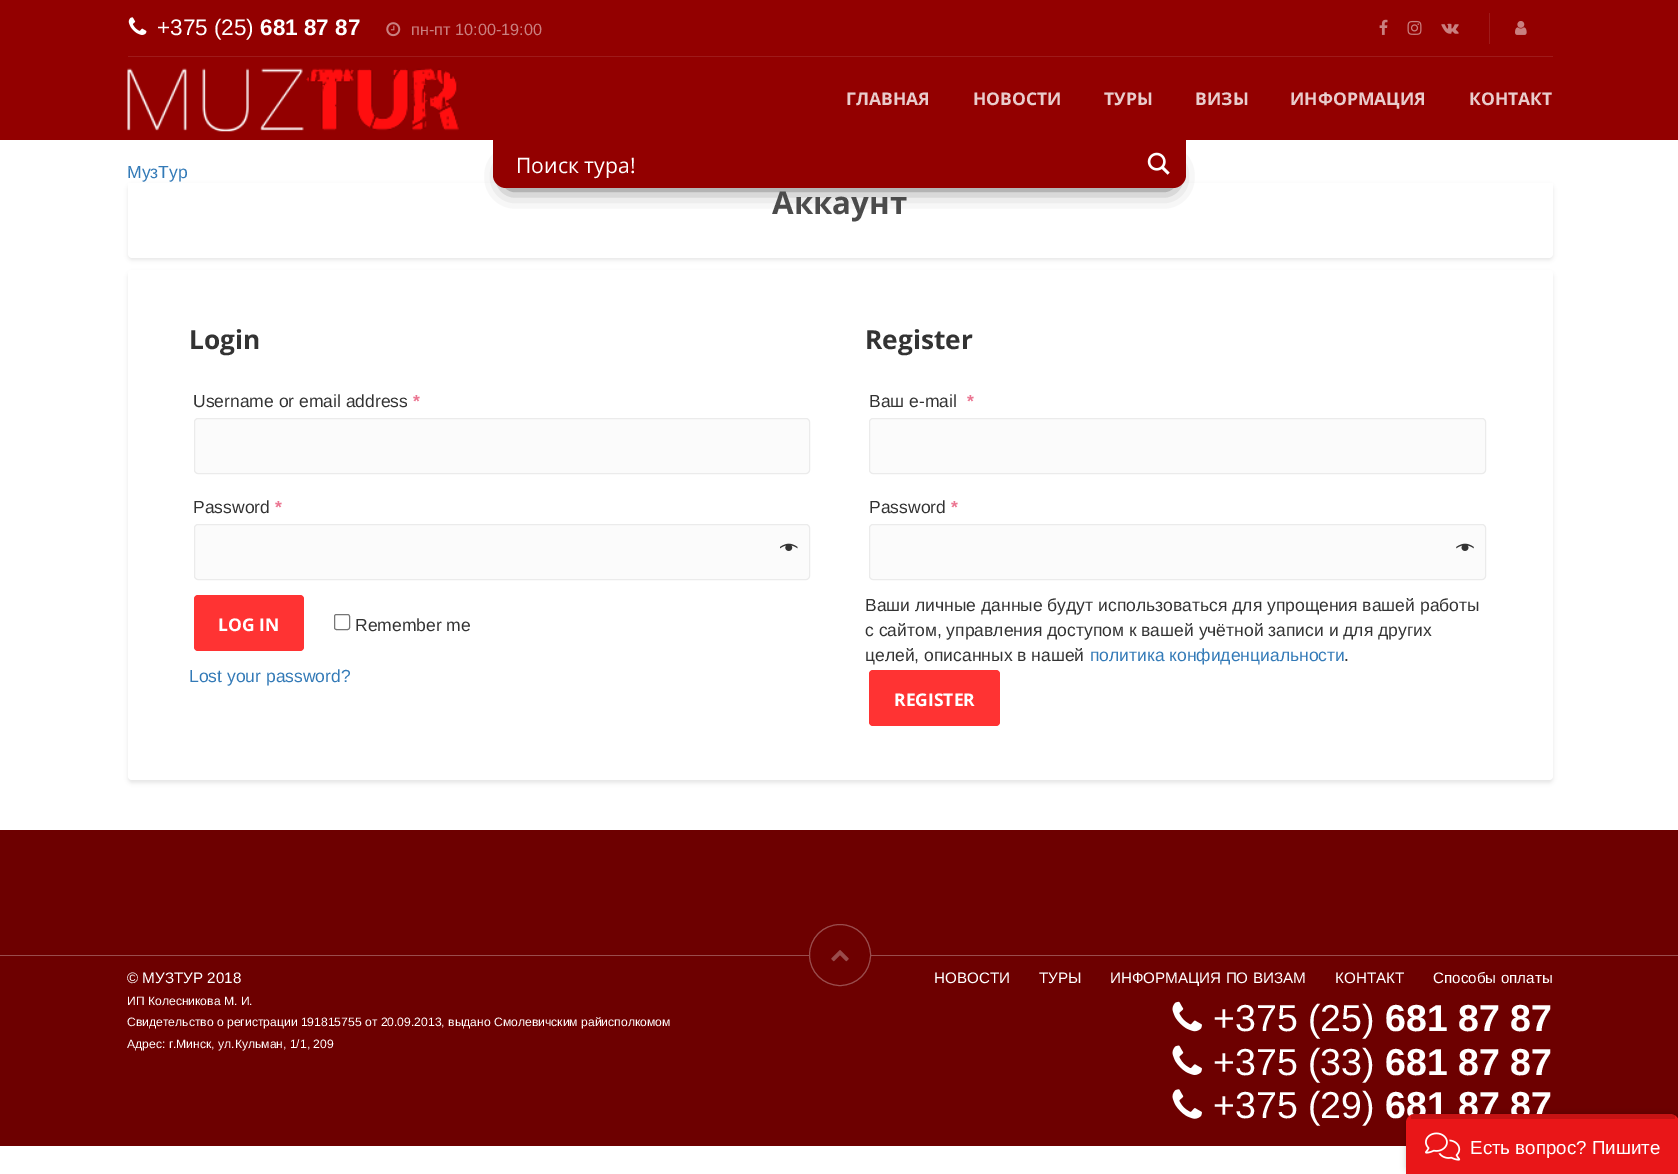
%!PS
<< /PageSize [1678 1174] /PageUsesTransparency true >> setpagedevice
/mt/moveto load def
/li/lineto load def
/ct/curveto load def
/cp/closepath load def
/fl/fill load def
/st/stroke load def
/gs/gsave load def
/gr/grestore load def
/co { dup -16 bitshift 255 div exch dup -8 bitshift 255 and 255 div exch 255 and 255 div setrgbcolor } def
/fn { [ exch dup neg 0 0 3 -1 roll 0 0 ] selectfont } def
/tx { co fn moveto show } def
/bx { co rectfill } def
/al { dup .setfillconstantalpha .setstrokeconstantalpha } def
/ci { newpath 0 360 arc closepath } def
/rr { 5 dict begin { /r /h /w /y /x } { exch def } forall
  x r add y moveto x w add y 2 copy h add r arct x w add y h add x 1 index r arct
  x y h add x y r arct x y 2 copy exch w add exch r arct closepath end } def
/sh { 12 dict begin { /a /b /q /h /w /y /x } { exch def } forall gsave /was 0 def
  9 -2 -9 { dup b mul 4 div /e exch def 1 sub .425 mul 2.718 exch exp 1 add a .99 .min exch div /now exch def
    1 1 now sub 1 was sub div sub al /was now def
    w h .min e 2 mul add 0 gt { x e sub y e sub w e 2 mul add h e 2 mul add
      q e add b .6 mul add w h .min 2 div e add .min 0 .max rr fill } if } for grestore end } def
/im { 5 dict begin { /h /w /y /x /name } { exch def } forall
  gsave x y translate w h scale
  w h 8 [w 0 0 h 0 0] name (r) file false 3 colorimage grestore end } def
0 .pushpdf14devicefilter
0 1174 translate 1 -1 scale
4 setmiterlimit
0 0 1678 1174 16#FFFFFF bx
0 0 1678 140 16#930000 bx
(media/1.raw) 128 17 19 18 im
(media/2.raw) 386 22 15 15 im
(media/3.raw) 1379 19 9 16 im
(media/4.raw) 1407 20 15 15 im
(media/5.raw) 1441 23 18 11 im
1489 13 1 31 16#9E1A1A bx
(media/6.raw) 1515 21 12 14 im
128 56 1425 1 16#9E1A1A bx
(media/7.raw) 127 68 332 64 im
16#000000 co
128 185 1425 75 4 2 .09 sh
16#FFFFFF co
128 183 mt 1553 183 li 1553 254 li 1553 256 1551 258 1549 258 ct 132 258 li 130 258 128 256 128 254 ct cp fl
16#000000 co
509 169 661 15 0 11 1 sh
16#930000 co
493 140 mt 1186 140 li 1186 175 li 1186 182 1180 188 1173 188 ct 506 188 li 499 188 493 182 493 175 ct cp fl
(media/8.raw) 1147 152 23 23 im
16#000000 co
128 273 1425 510 4 2 .09 sh
16#FFFFFF co
128 270 1425 510 4 rr fl
16#FBFBFB co
194.5 418.5 615 55 3.5 rr gs fl gr
16#EBEBEB co
st
16#FBFBFB co
194.5 524.5 615 55 3.5 rr gs fl gr
16#EBEBEB co
st
(media/9.raw) 780 543 18 8 im
16#FF3333 co
194 595 110 56 4 rr fl
16#767676 co
334.5 614.5 15 15 2 rr st
16#FBFBFB co
869.5 418.5 616 55 3.5 rr gs fl gr
16#EBEBEB co
st
16#FBFBFB co
869.5 524.5 616 55 3.5 rr gs fl gr
16#EBEBEB co
st
(media/10.raw) 1456 543 18 8 im
16#FF3333 co
869 670 131 56 4 rr fl
0 830 1678 316 16#6D0000 bx
0 955 1678 1 16#994D4D bx
16#6D0000 co
840 955 30.5 ci gs fl gr
16#994D4D co
st
(media/11.raw) 831 950 18 12 im
(media/12.raw) 1172 1001 30 31 im
(media/13.raw) 1172 1045 30 30 im
(media/14.raw) 1172 1089 30 30 im
16#000000 co
1406 1114 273 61 9 3 .2 sh
(+375 \(25\)) 157 35 /LiberationSans-Regular 22.5 16#FFFFFF tx
(681 87 87) 260 35 /LiberationSans-Bold 22.5 16#FFFFFF tx
(пн-пт 10:00-19:00) 411 35 /LiberationSans-Regular 16.25 16#C98080 tx
(ГЛАВНАЯ) 846 105 /OpenSans-Bold 17.5 16#E9CCCC tx
(НОВОСТИ) 973 105 /OpenSans-Bold 17.5 16#E9CCCC tx
(ТУРЫ) 1104 105 /OpenSans-Bold 17.5 16#E9CCCC tx
(ВИЗЫ) 1195 105 /OpenSans-Bold 17.5 16#E9CCCC tx
(ИНФОРМАЦИЯ) 1290 105 /OpenSans-Bold 17.5 16#E9CCCC tx
(КОНТАКТ) 1469 105 /OpenSans-Bold 17.5 16#E9CCCC tx
(Поиск тура!) 516 173 /OpenSans-Regular 21.25 16#FFFFFF tx
(МузТур) 127 178 /LiberationSans-Regular 17.5 16#337AB7 tx
(Аккаунт) 772 214 /OpenSans-Bold 31.25 16#4B4B4B tx
(Login) 189 349 /OpenSans-Bold 26.25 16#333333 tx
(Username or email address) 193 407 /LiberationSans-Regular 17.5 16#333333 tx
(*) 413 407 /LiberationSans-Bold 17.5 16#EB7591 tx
(Password) 193 513 /LiberationSans-Regular 17.5 16#333333 tx
(*) 275 513 /LiberationSans-Bold 17.5 16#EB7591 tx
(LOG IN) 218 631 /OpenSans-Bold 17.5 16#FFFFFF tx
(Remember me) 355 631 /LiberationSans-Regular 17.5 16#333333 tx
(Lost your password?) 189 682 /LiberationSans-Regular 17.5 16#337AB7 tx
(Register) 865 349 /OpenSans-Bold 26.25 16#333333 tx
(Ваш e-mail) 869 407 /LiberationSans-Regular 17.5 16#333333 tx
(*) 967 407 /LiberationSans-Bold 17.5 16#EB7591 tx
(Password) 869 513 /LiberationSans-Regular 17.5 16#333333 tx
(*) 951 513 /LiberationSans-Bold 17.5 16#EB7591 tx
(Ваши личные данные будут использоваться для упрощения вашей работы) 865 611 /LiberationSans-Regular 17.5 16#333333 tx
(с сайтом, управления доступом к вашей учётной записи и для других) 865 636 /LiberationSans-Regular 17.5 16#333333 tx
(целей, описанных в нашей) 865 661 /LiberationSans-Regular 17.5 16#333333 tx
(политика конфиденциальности) 1090 661 /LiberationSans-Regular 17.5 16#337AB7 tx
(.) 1344 661 /LiberationSans-Regular 17.5 16#333333 tx
(REGISTER) 894 706 /OpenSans-Bold 17.5 16#FFFFFF tx
(© МУЗТУР 2018) 127 983 /LiberationSans-Regular 15.2 16#FFFFFF tx
(ИП Колесникова М. И.) 127 1005 /LiberationSans-Regular 12.15 16#FFFFFF tx
(Свидетельство о регистрации 191815755 от 20.09.2013, выдано Смолевичским райисполкомом) 127 1026 /LiberationSans-Regular 12.15 16#FFFFFF tx
(Адрес: г.Минск, ул.Кульман, 1/1, 209) 127 1048 /LiberationSans-Regular 12.15 16#FFFFFF tx
(НОВОСТИ) 934 983 /LiberationSans-Regular 15.2 16#FFFFFF tx
(ТУРЫ) 1039 983 /LiberationSans-Regular 15.2 16#FFFFFF tx
(ИНФОРМАЦИЯ ПО ВИЗАМ) 1110 983 /LiberationSans-Regular 15.2 16#FFFFFF tx
(КОНТАКТ) 1335 983 /LiberationSans-Regular 15.2 16#FFFFFF tx
(Способы оплаты) 1433 983 /LiberationSans-Regular 15.2 16#FFFFFF tx
(+375 \(25\)) 1213 1031 /LiberationSans-Regular 37.5 16#FFFFFF tx
(681 87 87) 1385 1031 /LiberationSans-Bold 37.5 16#FFFFFF tx
(+375 \(33\)) 1213 1075 /LiberationSans-Regular 37.5 16#FFFFFF tx
(681 87 87) 1385 1075 /LiberationSans-Bold 37.5 16#FFFFFF tx
(+375 \(29\)) 1213 1118 /LiberationSans-Regular 37.5 16#FFFFFF tx
(681 87 87) 1385 1118 /LiberationSans-Bold 37.5 16#FFFFFF tx
16#E91618 co
1415 1114 mt 1670 1114 li 1675 1114 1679 1118 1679 1123 ct 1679 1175 li 1406 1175 li 1406 1123 li 1406 1118 1410 1114 1415 1114 ct cp fl
0.15 al
1411 1114 264 5 16#000000 bx
1 al
(media/15.raw) 1425 1132 36 29 im
(Есть вопрос? Пишите) 1470 1154 /LiberationSans-Regular 18.75 16#FFFFFF tx
.poppdf14devicefilter showpage
